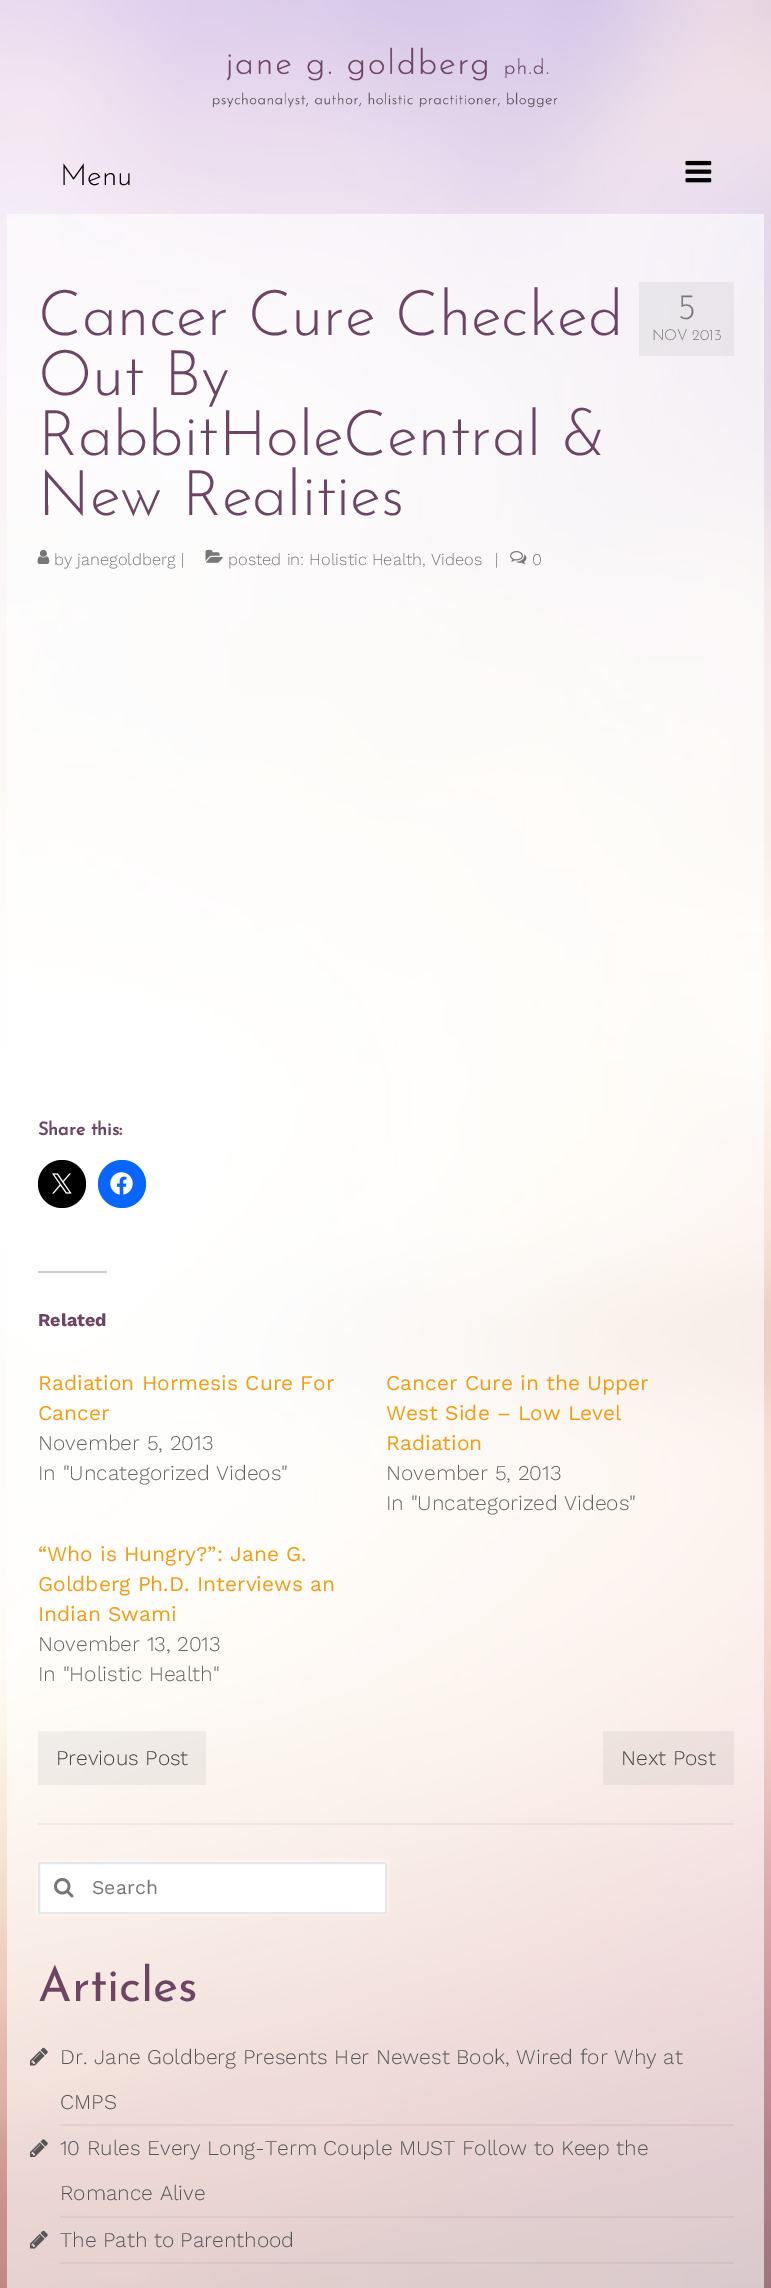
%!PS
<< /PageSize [771 2288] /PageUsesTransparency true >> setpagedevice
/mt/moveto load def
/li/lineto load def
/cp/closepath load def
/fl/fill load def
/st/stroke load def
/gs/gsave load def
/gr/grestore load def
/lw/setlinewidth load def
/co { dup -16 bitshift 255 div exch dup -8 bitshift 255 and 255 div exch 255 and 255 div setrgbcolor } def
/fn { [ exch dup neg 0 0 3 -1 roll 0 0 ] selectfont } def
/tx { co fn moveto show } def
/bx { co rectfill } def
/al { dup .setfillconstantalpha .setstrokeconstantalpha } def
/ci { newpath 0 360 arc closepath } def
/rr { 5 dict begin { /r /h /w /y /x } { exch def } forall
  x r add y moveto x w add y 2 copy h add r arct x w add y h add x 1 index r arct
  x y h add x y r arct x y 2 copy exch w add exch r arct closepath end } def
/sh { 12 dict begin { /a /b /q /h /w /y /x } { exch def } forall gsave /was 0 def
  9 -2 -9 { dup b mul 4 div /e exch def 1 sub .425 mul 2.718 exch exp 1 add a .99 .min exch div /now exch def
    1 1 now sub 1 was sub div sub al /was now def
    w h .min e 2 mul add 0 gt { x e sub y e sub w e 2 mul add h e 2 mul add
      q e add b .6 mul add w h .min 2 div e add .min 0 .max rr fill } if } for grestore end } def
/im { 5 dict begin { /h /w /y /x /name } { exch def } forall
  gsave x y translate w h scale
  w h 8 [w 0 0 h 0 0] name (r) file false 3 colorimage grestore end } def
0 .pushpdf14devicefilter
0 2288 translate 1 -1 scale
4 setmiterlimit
0 0 771 2288 16#FFFFFF bx
(media/1.raw) 0 0 771 2288 im
(media/2.raw) 212 47 346 61 im
(media/3.raw) 685 160 27 23 im
0.61 al
7 214 757 2074 16#FFFFFF bx
1 al
(media/4.raw) 37 549 13 15 im
(media/5.raw) 205 549 18 14 im
(media/6.raw) 510 551 17 13 im
0.05 al
639 282 95 74 16#000000 bx
1 al
62 1184 24 ci fl
(media/7.raw) 52 1173 20 21 im
16#0866FF co
122 1184 24 ci fl
(media/8.raw) 110 1172 23 23 im
38 1271 69 2 16#CCCCCC bx
0.05 al
38 1823 696 2 16#000000 bx
38 1731 168 54 16#000000 bx
603 1731 131 54 16#000000 bx
1 al
16#FFFFFF co
38 1862 349 52 0 2 1 sh
39 1863 mt 386 1863 li 386 1913 li 39 1913 li cp gs fl gr
16#E7E7E7 co
2 lw
st
(media/9.raw) 54 1878 20 20 im
0.05 al
60 2124 674 2 16#000000 bx
1 al
(media/10.raw) 30 2047 18 19 im
0.05 al
60 2216 674 2 16#000000 bx
1 al
(media/11.raw) 30 2139 18 18 im
0.05 al
60 2262 674 2 16#000000 bx
1 al
(media/12.raw) 30 2230 18 19 im
(Menu) 60 185 /JosefinSans-Light 30 16#000000 tx
(Cancer Cure Checked) 38 335 /JosefinSans-Light 63 16#6E4464 tx
(Out By) 38 395 /JosefinSans-Light 63 16#6E4464 tx
(RabbitHoleCentral &) 38 455 /JosefinSans-Light 63 16#6E4464 tx
(New Realities) 38 515 /JosefinSans-Light 63 16#6E4464 tx
(by janegoldberg |) 54 565 /WorkSans-Light 16.5 16#777777 tx
(posted in: Holistic Health, Videos) 228 565 /WorkSans-Light 16.5 16#777777 tx
(|) 495 565 /WorkSans-Light 16.5 16#777777 tx
(0) 532 565 /WorkSans-Light 16.5 16#777777 tx
(5) 677 319 /JosefinSans-Light 36 16#777777 tx
(NOV 2013) 652 340 /JosefinSans-Light 15 16#777777 tx
(Share this:) 38 1135 /JosefinSans-Bold 18 16#6E4464 tx
(Related) 38 1326 /WorkSans-Bold 18 16#6E4464 tx
(Radiation Hormesis Cure For) 38 1390 /WorkSans-Regular 21 16#F39C12 tx
(Cancer) 38 1420 /WorkSans-Regular 21 16#F39C12 tx
(November 5, 2013) 38 1450 /WorkSans-Light 21 16#666665 tx
(In "Uncategorized Videos") 38 1480 /WorkSans-Light 21 16#666665 tx
(Cancer Cure in the Upper) 386 1390 /WorkSans-Regular 21 16#F39C12 tx
(West Side – Low Level) 386 1420 /WorkSans-Regular 21 16#F39C12 tx
(Radiation) 386 1450 /WorkSans-Regular 21 16#F39C12 tx
(November 5, 2013) 386 1480 /WorkSans-Light 21 16#666665 tx
(In "Uncategorized Videos") 386 1510 /WorkSans-Light 21 16#666665 tx
(“Who is Hungry?”: Jane G.) 38 1561 /WorkSans-Regular 21 16#F39C12 tx
(Goldberg Ph.D. Interviews an) 38 1591 /WorkSans-Regular 21 16#F39C12 tx
(Indian Swami) 38 1621 /WorkSans-Regular 21 16#F39C12 tx
(November 13, 2013) 38 1651 /WorkSans-Light 21 16#666665 tx
(In "Holistic Health") 38 1681 /WorkSans-Light 21 16#666665 tx
(Previous Post) 56 1765 /WorkSans-Light 21 16#444444 tx
(Next Post) 621 1765 /WorkSans-Light 21 16#444444 tx
(Search) 92 1894 /WorkSans-Regular 19.5 16#777777 tx
(Articles) 38 2001 /JosefinSans-Regular 48 16#6E4464 tx
(Dr. Jane Goldberg Presents Her Newest Book, Wired for Why at) 60 2064 /WorkSans-Light 21 16#555555 tx
(CMPS) 60 2109 /WorkSans-Light 21 16#555555 tx
(10 Rules Every Long-Term Couple MUST Follow to Keep the) 60 2155 /WorkSans-Light 21 16#555555 tx
(Romance Alive) 60 2200 /WorkSans-Light 21 16#555555 tx
(The Path to Parenthood) 60 2247 /WorkSans-Light 21 16#555555 tx
.poppdf14devicefilter showpage
